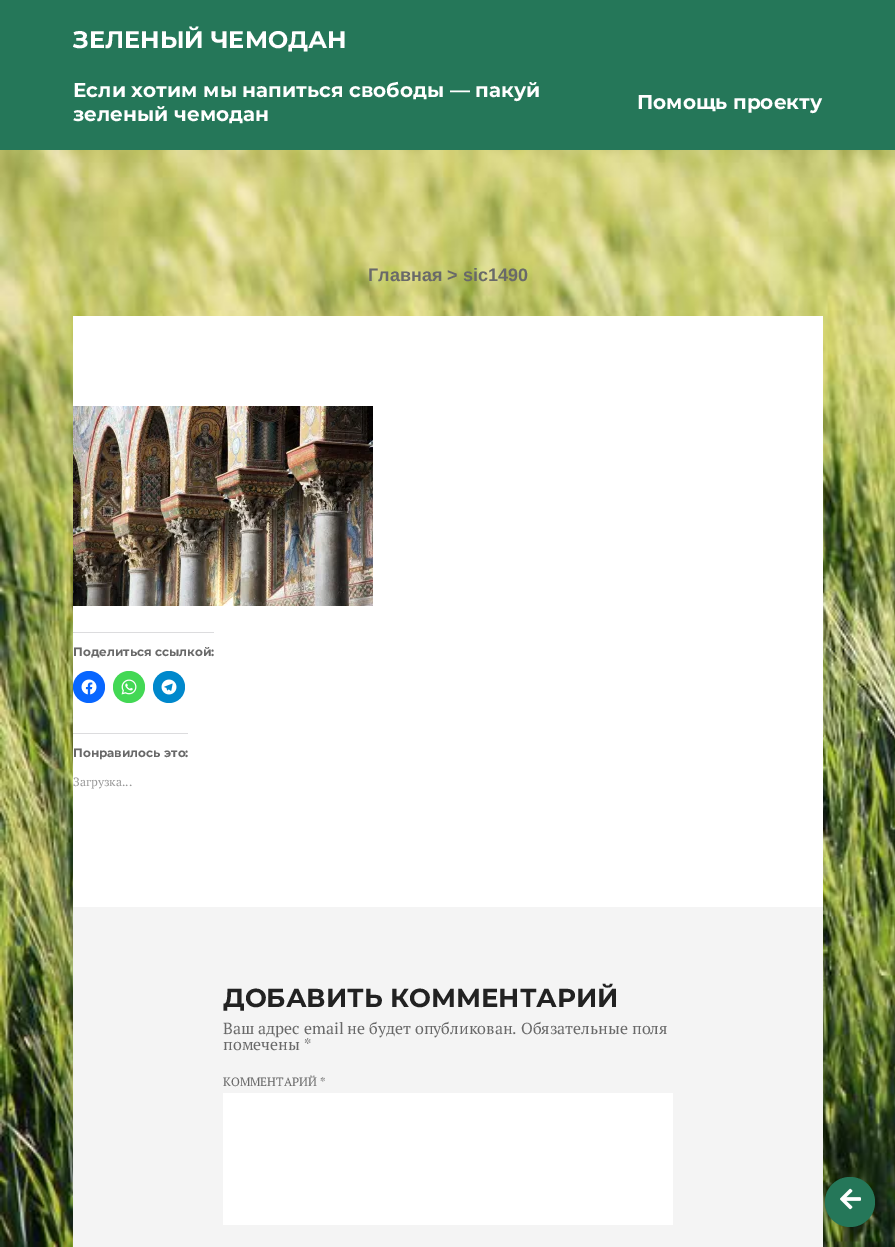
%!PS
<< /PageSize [895 1247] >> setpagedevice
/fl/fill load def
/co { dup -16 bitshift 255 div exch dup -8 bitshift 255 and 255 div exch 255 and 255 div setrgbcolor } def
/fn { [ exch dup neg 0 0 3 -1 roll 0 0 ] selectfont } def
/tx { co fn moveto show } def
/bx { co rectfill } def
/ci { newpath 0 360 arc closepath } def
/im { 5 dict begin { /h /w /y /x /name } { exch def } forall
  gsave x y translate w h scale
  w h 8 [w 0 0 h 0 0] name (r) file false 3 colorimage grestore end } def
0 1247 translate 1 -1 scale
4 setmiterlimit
0 0 895 1247 16#FFFFFF bx
(media/1.raw) 0 150 895 1097 im
0 0 895 150 16#257759 bx
73 316 750 591 16#FFFFFF bx
(media/2.raw) 73 406 300 200 im
73 632 141 1 16#DCDCDE bx
16#0866FF co
89 687 16 ci fl
(media/3.raw) 81 679 16 16 im
16#43D854 co
129 687 16 ci fl
(media/4.raw) 121 679 16 16 im
16#0088CC co
169 687 16 ci fl
(media/5.raw) 161 679 16 16 im
73 733 115 1 16#DCDCDE bx
73 907 750 340 16#F4F4F4 bx
223 1093 450 132 16#FFFFFF bx
16#257759 co
850 1202 25 ci fl
(media/6.raw) 840 1188 21 22 im
(ЗЕЛЕНЫЙ ЧЕМОДАН) 73 48 /Montserrat-Bold 24 16#FFFFFF tx
(Если хотим мы напиться свободы — пакуй) 73 97 /Montserrat-Bold 20 16#FFFFFF tx
(зеленый чемодан) 73 121 /Montserrat-Bold 20 16#FFFFFF tx
(Помощь проекту) 637 109 /Montserrat-Bold 20 16#FFFFFF tx
(Главная > sic1490) 368 281 /LiberationSans-Bold 18 16#696969 tx
(Поделиться ссылкой:) 73 656 /Montserrat-Bold 12 16#696969 tx
(Понравилось это:) 73 757 /Montserrat-Bold 12 16#696969 tx
(Загрузка...) 73 786 /PTSerif-Regular 12 16#999999 tx
(ДОБАВИТЬ КОММЕНТАРИЙ) 223 1007 /Montserrat-Bold 26 16#222222 tx
(Ваш адрес email не будет опубликован. Обязательные поля) 223 1034 /PTSerif-Regular 16 16#696969 tx
(помечены *) 223 1050 /PTSerif-Regular 16 16#696969 tx
(КОММЕНТАРИЙ *) 223 1086 /PTSerif-Regular 12 16#696969 tx
showpage
